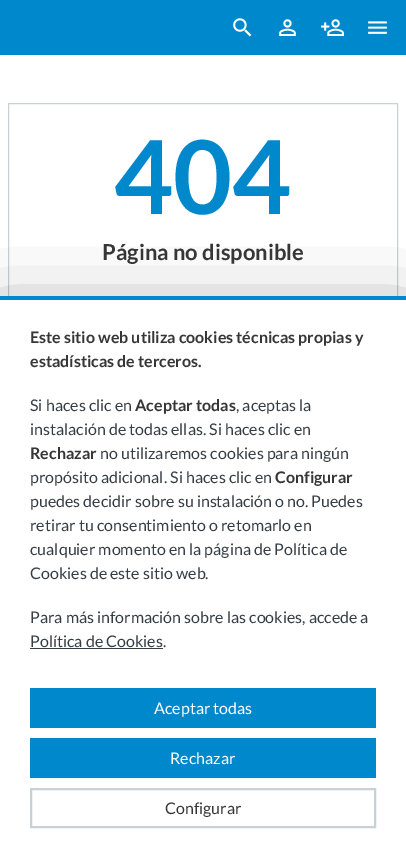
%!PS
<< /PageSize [406 858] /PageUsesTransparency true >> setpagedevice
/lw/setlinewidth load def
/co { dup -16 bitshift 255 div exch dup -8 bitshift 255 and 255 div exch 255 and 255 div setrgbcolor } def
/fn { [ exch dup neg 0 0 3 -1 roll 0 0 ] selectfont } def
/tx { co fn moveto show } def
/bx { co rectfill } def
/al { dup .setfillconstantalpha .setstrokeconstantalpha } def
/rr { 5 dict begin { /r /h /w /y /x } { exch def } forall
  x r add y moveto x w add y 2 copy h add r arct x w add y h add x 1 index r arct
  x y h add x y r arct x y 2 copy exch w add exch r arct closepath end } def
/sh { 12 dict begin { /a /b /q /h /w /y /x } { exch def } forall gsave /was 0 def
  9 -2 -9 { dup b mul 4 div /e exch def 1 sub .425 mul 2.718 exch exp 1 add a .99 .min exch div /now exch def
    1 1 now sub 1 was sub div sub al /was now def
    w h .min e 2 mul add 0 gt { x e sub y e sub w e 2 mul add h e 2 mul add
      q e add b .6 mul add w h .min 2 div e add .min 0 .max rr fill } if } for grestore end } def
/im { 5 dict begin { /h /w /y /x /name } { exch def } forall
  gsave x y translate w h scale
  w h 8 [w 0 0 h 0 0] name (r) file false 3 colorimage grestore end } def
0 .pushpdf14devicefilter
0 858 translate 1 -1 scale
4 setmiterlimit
0 0 406 858 16#FFFFFF bx
0 0 406 55 16#0088CC bx
(media/1.raw) 233 18 19 19 im
(media/2.raw) 279 19 17 17 im
(media/3.raw) 321 19 23 17 im
(media/4.raw) 368 21 19 13 im
16#C7D1D6 co
8.5 103.5 389 311 rectstroke
16#000000 co
0 331 406 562 0 37.5 .7 sh
0 300 406 558 16#FFFFFF bx
0 296 406 4 16#0088CC bx
30 648 133 1 16#363E45 bx
30 688 346 40 16#0088CC bx
30 738 346 40 16#0088CC bx
16#C7D1D6 co
2 lw
31 789 344 38 rectstroke
(404) 114 214 /Lato-Bold 102 16#0088CC tx
(Página no disponible) 102 260 /Lato-Bold 22 16#363636 tx
(Este sitio web utiliza cookies técnicas propias y) 30 343 /Lato-Bold 16 16#363636 tx
(estadísticas de terceros.) 30 367 /Lato-Bold 16 16#363636 tx
(Si haces clic en) 30 411 /Lato-Regular 16 16#363E45 tx
(Aceptar todas) 135 411 /Lato-Bold 16 16#363636 tx
(, aceptas la) 236 411 /Lato-Regular 16 16#363E45 tx
(instalación de todas ellas. Si haces clic en) 30 435 /Lato-Regular 16 16#363E45 tx
(Rechazar) 30 459 /Lato-Bold 16 16#363636 tx
(no utilizaremos cookies para ningún) 100 459 /Lato-Regular 16 16#363E45 tx
(propósito adicional. Si haces clic en) 30 483 /Lato-Regular 16 16#363E45 tx
(Configurar) 275 483 /Lato-Bold 16 16#363636 tx
(puedes decidir sobre su instalación o no. Puedes) 30 507 /Lato-Regular 16 16#363E45 tx
(retirar tu consentimiento o retomarlo en) 30 531 /Lato-Regular 16 16#363E45 tx
(cualquier momento en la página de Política de) 30 555 /Lato-Regular 16 16#363E45 tx
(Cookies de este sitio web.) 30 579 /Lato-Regular 16 16#363E45 tx
(Para más información sobre las cookies, accede a) 30 623 /Lato-Regular 16 16#363E45 tx
(Política de Cookies.) 30 647 /Lato-Regular 16 16#363E45 tx
(Aceptar todas) 154 714 /Lato-Regular 16 16#FFFFFF tx
(Rechazar) 170 764 /Lato-Regular 16 16#FFFFFF tx
(Configurar) 165 814 /Lato-Regular 16 16#363636 tx
.poppdf14devicefilter showpage
